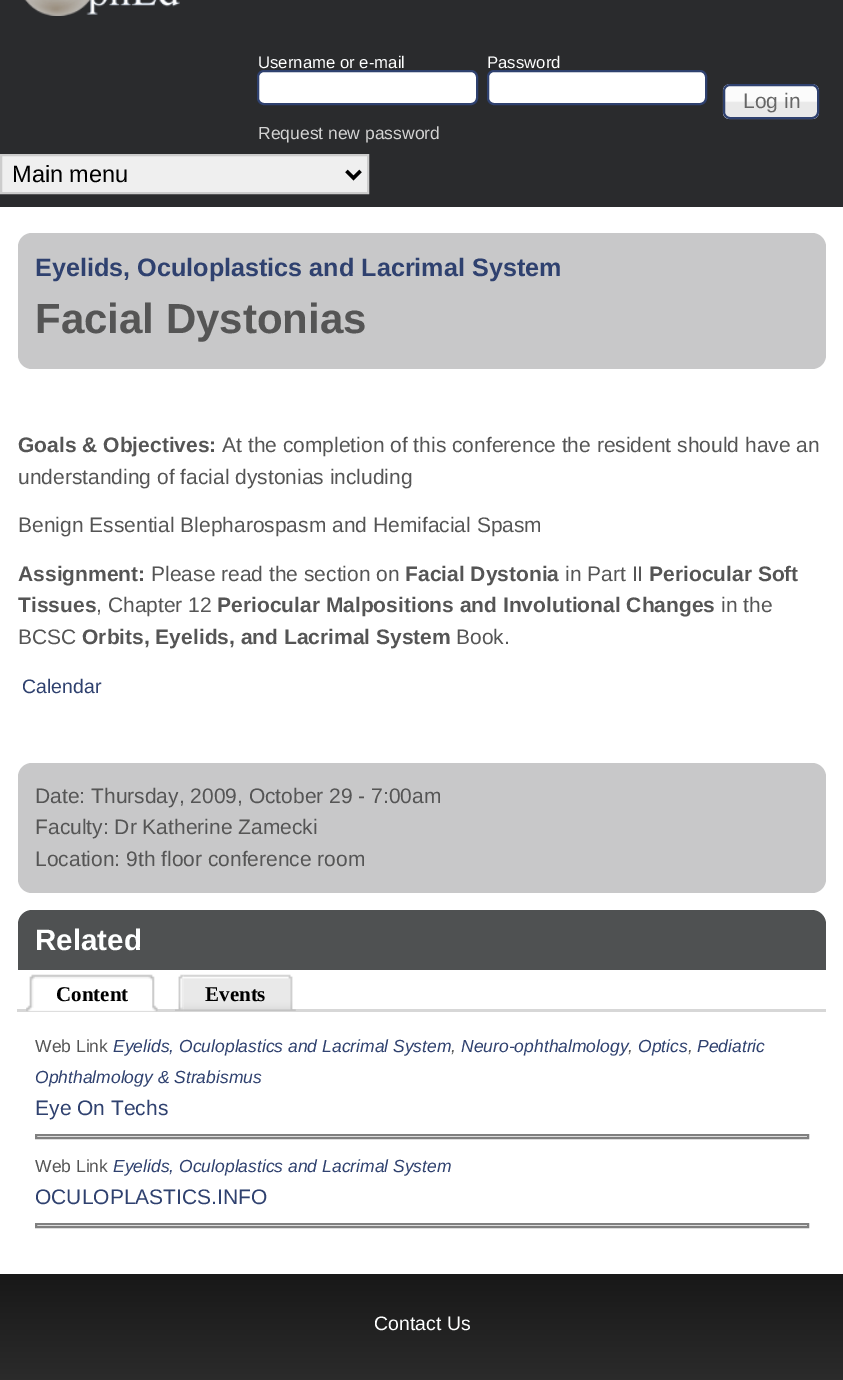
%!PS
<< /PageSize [843 1380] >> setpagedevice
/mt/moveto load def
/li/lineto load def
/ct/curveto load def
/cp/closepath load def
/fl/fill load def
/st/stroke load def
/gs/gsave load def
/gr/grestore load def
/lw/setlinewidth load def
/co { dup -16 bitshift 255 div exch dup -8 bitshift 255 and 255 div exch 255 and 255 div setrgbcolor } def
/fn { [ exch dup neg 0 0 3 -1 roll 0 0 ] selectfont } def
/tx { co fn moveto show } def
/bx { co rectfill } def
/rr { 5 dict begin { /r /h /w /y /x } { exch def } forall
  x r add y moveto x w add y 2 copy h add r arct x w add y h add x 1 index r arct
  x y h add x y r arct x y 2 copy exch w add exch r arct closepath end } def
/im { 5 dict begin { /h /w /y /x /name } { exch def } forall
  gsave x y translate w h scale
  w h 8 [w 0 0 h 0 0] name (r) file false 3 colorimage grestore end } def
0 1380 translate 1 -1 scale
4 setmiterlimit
0 0 843 1380 16#FFFFFF bx
0 0 843 207 16#2A2B2D bx
(media/1.raw) 24 0 156 16 im
16#FFFFFF co
258 71 219 33 6 rr gs fl gr
16#2F416F co
2 lw
st
16#FFFFFF co
488 71 218 33 6 rr gs fl gr
16#2F416F co
st
(media/2.raw) 722 84 97 36 im
724 85 94 33 6 rr st
16#EFEFEF co
1 155 mt 368 155 li 368 193 li 1 193 li cp gs fl gr
16#CCCCCC co
st
16#000000 co
3.5 lw
346.5 171 mt 353.5 178 li 360.5 171 li st
16#C8C8C9 co
18 233 808 136 14 rr fl
18 763 808 130 14 rr fl
16#4F5152 co
32 910 mt 812 910 li 819.5 910 826 916.5 826 924 ct 826 970 li 18 970 li 18 924 li 18 916.5 24.5 910 32 910 ct cp fl
17 1009 809 3 16#D7D7D7 bx
(media/3.raw) 26 974 9 38 im
(media/4.raw) 35 974 123 38 im
(media/5.raw) 175 974 9 37 im
(media/6.raw) 183 974 113 37 im
16#808080 co
2 lw
36 1135 772 3 rectstroke
36 1224 772 3 rectstroke
gs 0 1274 mt 843 1274 li 843 1380 li 0 1380 li cp clip newpath
<< /ShadingType 2 /ColorSpace /DeviceRGB /Coords [0 1274 0 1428] /Extend [true true] /Function << /FunctionType 2 /Domain [0 1] /C0 [.094 .094 .094] /C1 [.204 .204 .204] /N 1 >> >> shfill gr
(Username or e-mail) 258 68 /LiberationSans-Regular 16.75 16#FEFFFF tx
(Password) 487 68 /LiberationSans-Regular 16.75 16#FEFFFF tx
(Log in) 743 108 /LiberationSans-Regular 21 16#666666 tx
(Request new password) 258 139 /LiberationSans-Regular 17.5 16#D3D3D3 tx
(Main menu) 12 182 /LiberationSans-Regular 23.5 16#000000 tx
(Eyelids, Oculoplastics and Lacrimal System) 35 276 /LiberationSans-Bold 25.2 16#2F416F tx
(Facial Dystonias) 35 333 /LiberationSans-Bold 42 16#555555 tx
(Goals & Objectives:) 18 452 /LiberationSans-Bold 21 16#555555 tx
(At the completion of this conference the resident should have an) 222 452 /LiberationSans-Regular 21 16#555555 tx
(understanding of facial dystonias including) 18 484 /LiberationSans-Regular 21 16#555555 tx
(Benign Essential Blepharospasm and Hemifacial Spasm) 18 532 /LiberationSans-Regular 21 16#555555 tx
(Assignment:) 18 581 /LiberationSans-Bold 21 16#555555 tx
(Please read the section on) 151 581 /LiberationSans-Regular 21 16#555555 tx
(Facial Dystonia) 405 581 /LiberationSans-Bold 21 16#555555 tx
(in Part II) 565 581 /LiberationSans-Regular 21 16#555555 tx
(Periocular Soft) 649 581 /LiberationSans-Bold 21 16#555555 tx
(Tissues) 18 612 /LiberationSans-Bold 21 16#555555 tx
(, Chapter 12) 96 612 /LiberationSans-Regular 21 16#555555 tx
(Periocular Malpositions and Involutional Changes) 217 612 /LiberationSans-Bold 21 16#555555 tx
(in the) 721 612 /LiberationSans-Regular 21 16#555555 tx
(BCSC) 18 644 /LiberationSans-Regular 21 16#555555 tx
(Orbits, Eyelids, and Lacrimal System) 82 644 /LiberationSans-Bold 21 16#555555 tx
(Book.) 456 644 /LiberationSans-Regular 21 16#555555 tx
(Calendar) 22 693 /LiberationSans-Regular 19.5 16#2F416F tx
(Date: Thursday, 2009, October 29 - 7:00am) 35 803 /LiberationSans-Regular 21 16#555555 tx
(Faculty: Dr Katherine Zamecki) 35 834 /LiberationSans-Regular 21 16#555555 tx
(Location: 9th floor conference room) 35 866 /LiberationSans-Regular 21 16#555555 tx
(Related) 35 950 /LiberationSans-Bold 29.5 16#FEFFFF tx
(Content) 56 1001 /LiberationSerif-Bold 21 16#000000 tx
(Events) 205 1001 /LiberationSerif-Bold 21 16#000000 tx
(Web Link) 35 1052 /LiberationSans-Regular 17.5 16#555555 tx
(Eyelids, Oculoplastics and Lacrimal System) 113 1052 /LiberationSans-Italic 17.5 16#2F416F tx
(,) 451 1052 /LiberationSans-Italic 17.5 16#555555 tx
(Neuro-ophthalmology) 461 1052 /LiberationSans-Italic 17.5 16#2F416F tx
(Optics) 638 1052 /LiberationSans-Italic 17.5 16#2F416F tx
(Pediatric) 697 1052 /LiberationSans-Italic 17.5 16#2F416F tx
(,) 628 1052 /LiberationSans-Italic 17.5 16#555555 tx
(,) 688 1052 /LiberationSans-Italic 17.5 16#555555 tx
(Ophthalmology & Strabismus) 35 1083 /LiberationSans-Italic 17.5 16#2F416F tx
(Eye On Techs) 35 1115 /LiberationSans-Regular 21 16#2F416F tx
(Web Link) 35 1172 /LiberationSans-Regular 17.5 16#555555 tx
(Eyelids, Oculoplastics and Lacrimal System) 113 1172 /LiberationSans-Italic 17.5 16#2F416F tx
(OCULOPLASTICS.INFO) 35 1204 /LiberationSans-Regular 21 16#2F416F tx
(Contact Us) 374 1330 /LiberationSans-Regular 19.5 16#FEFFFF tx
showpage
